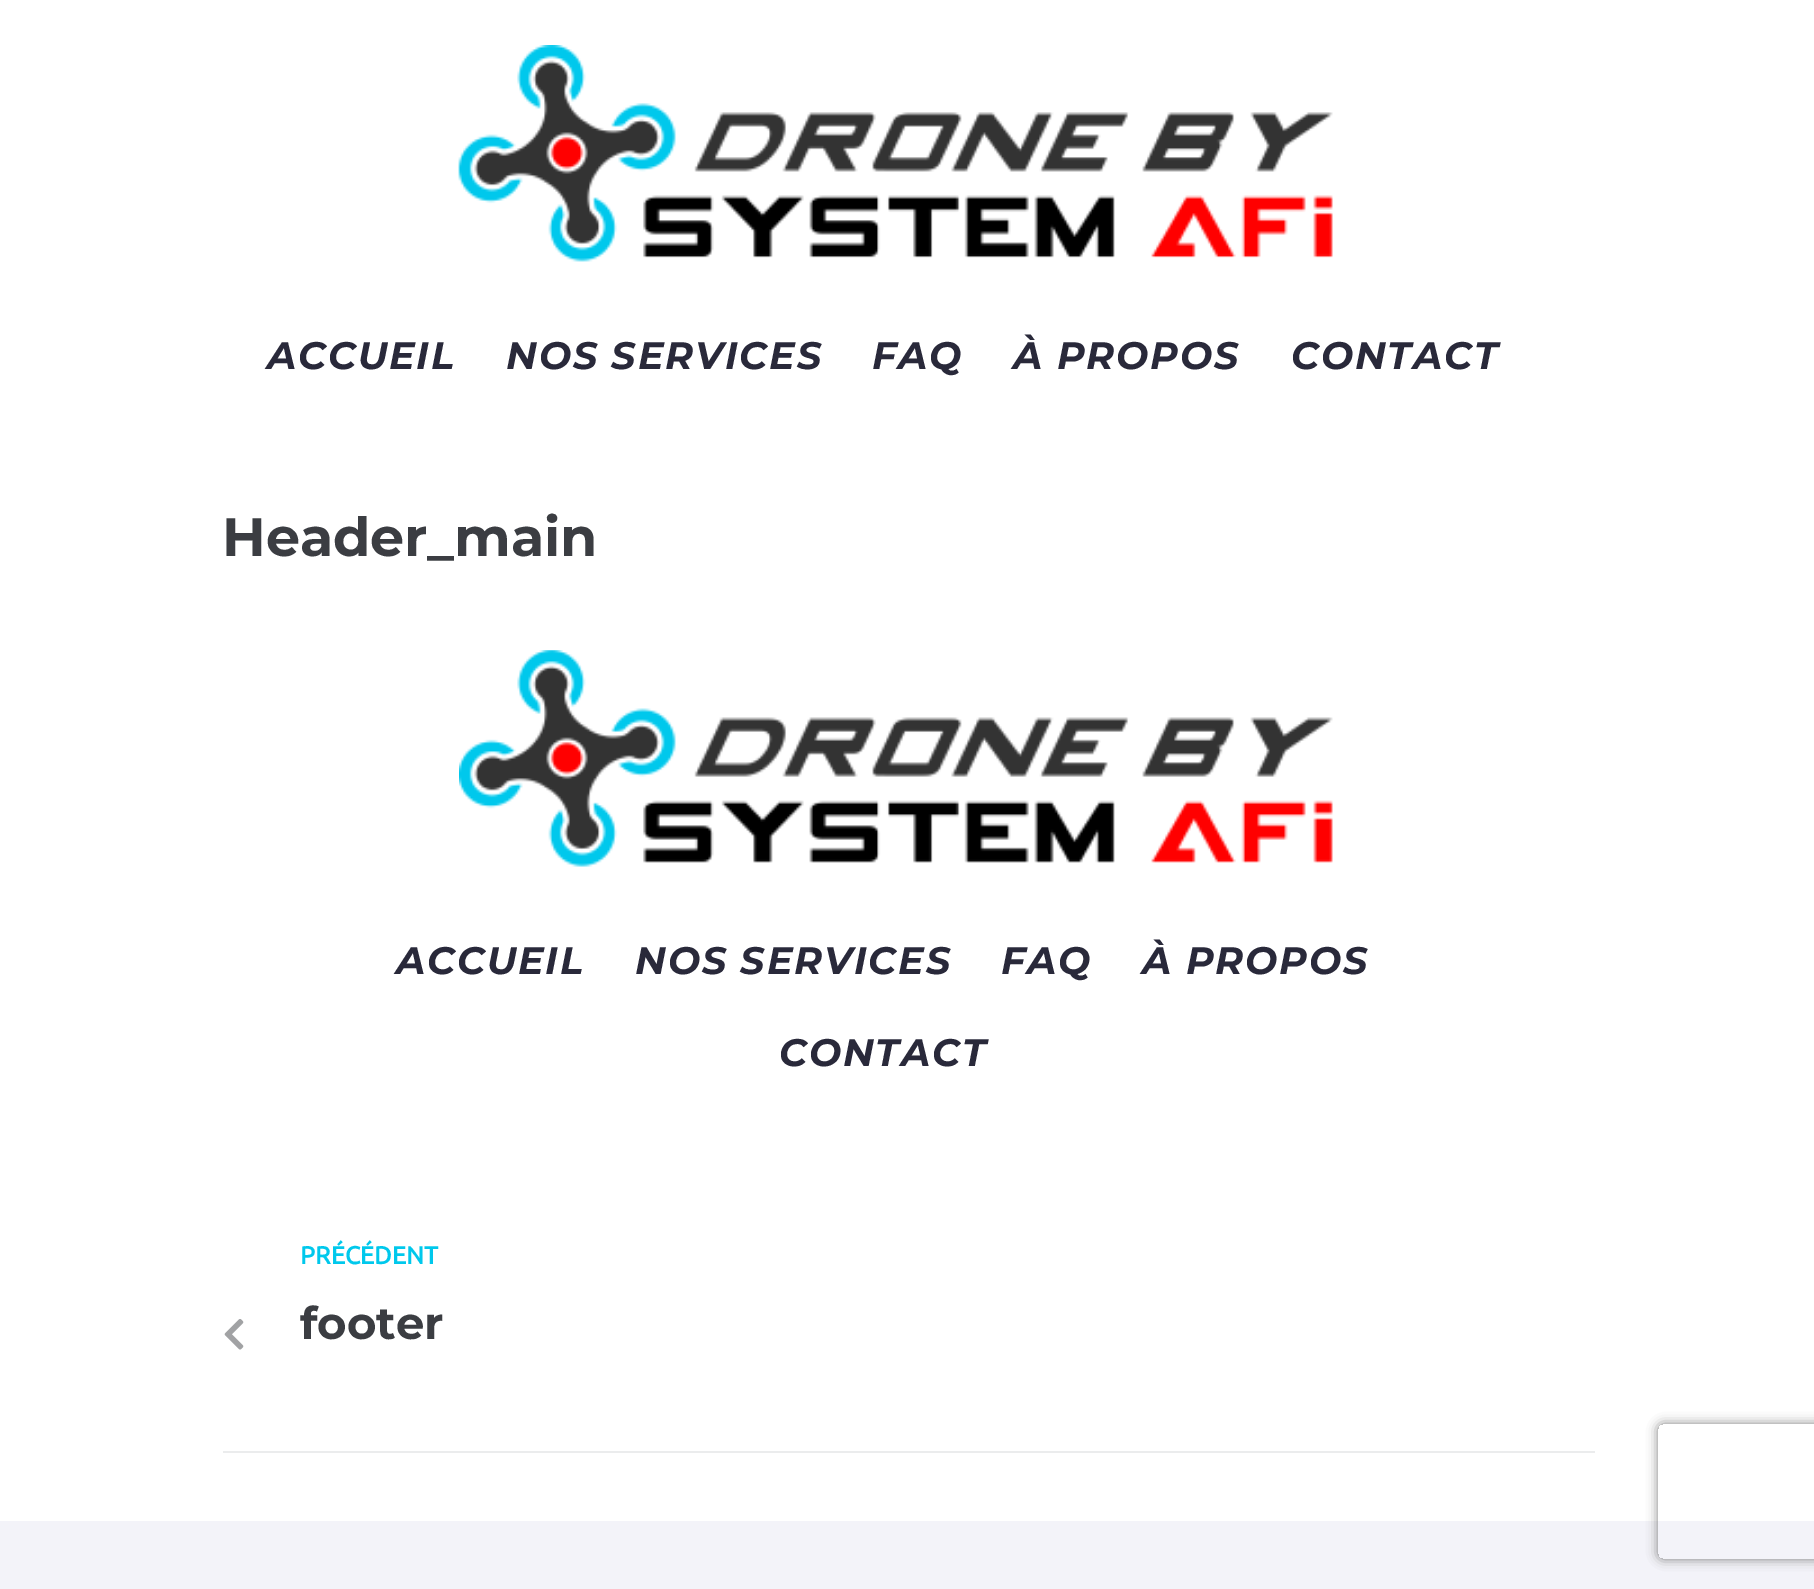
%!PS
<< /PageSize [1814 1589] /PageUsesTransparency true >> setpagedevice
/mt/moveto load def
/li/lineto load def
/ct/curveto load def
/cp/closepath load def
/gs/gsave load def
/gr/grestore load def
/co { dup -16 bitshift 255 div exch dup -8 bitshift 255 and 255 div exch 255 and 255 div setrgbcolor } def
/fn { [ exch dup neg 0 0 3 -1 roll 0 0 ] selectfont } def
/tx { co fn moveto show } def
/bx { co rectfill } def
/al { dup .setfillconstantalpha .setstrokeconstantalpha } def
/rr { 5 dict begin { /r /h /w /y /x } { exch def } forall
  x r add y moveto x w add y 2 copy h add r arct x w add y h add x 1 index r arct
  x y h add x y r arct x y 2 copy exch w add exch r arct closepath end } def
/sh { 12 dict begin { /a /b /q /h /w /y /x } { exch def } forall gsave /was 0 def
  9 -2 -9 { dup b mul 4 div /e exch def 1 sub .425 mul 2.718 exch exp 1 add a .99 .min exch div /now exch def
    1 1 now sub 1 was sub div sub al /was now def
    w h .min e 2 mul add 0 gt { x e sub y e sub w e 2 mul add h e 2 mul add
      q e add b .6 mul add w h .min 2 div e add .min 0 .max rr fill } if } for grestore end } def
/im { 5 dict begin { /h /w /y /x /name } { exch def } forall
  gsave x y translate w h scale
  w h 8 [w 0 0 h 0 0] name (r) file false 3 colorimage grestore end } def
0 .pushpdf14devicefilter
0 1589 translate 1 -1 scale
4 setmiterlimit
0 0 1814 1589 16#FFFFFF bx
(media/1.raw) 458 45 875 217 im
(media/2.raw) 459 650 874 217 im
223 1451 1372 2 16#EBECED bx
(media/3.raw) 224 1319 20 31 im
0 1521 1814 68 16#F3F3F9 bx
gs
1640 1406 mt 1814 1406 li 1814 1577 li 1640 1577 li cp 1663 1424 mt 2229 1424 li 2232 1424 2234 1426 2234 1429 ct 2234 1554 li 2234 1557 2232 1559 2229 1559 ct 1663 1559 li 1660 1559 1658 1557 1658 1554 ct 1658 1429 li 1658 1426 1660 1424 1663 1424 ct cp eoclip newpath
16#808080 co
1658 1424 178 135 5 5.5 1 sh
gr
/Montserrat-BoldItalic 38.25 fn
16#29293A co
267 369 mt 1.75 0 (ACCUEIL) ashow
506 369 mt 1.75 0 (NOS SERVICES) ashow
872 369 mt 1.75 0 (FAQ) ashow
1013 369 mt 1.75 0 (À PROPOS) ashow
1291 369 mt 1.75 0 (CONTACT) ashow
/Montserrat-Bold 54 fn
16#3B3D42 co
222 556 mt -.1 0 (Header_main) ashow
/Montserrat-BoldItalic 38.25 fn
16#29293A co
396 974 mt 1.75 0 (ACCUEIL) ashow
635 974 mt 1.75 0 (NOS SERVICES) ashow
1001 974 mt 1.75 0 (FAQ) ashow
1142 974 mt 1.75 0 (À PROPOS) ashow
779 1066 mt 1.75 0 (CONTACT) ashow
(PRÉCÉDENT) 300 1264 /Ubuntu-Bold 24.75 16#00C8EC tx
/Montserrat-Bold 45 fn
16#3B3D42 co
300 1339 mt -.1 0 (footer) ashow
.poppdf14devicefilter showpage
